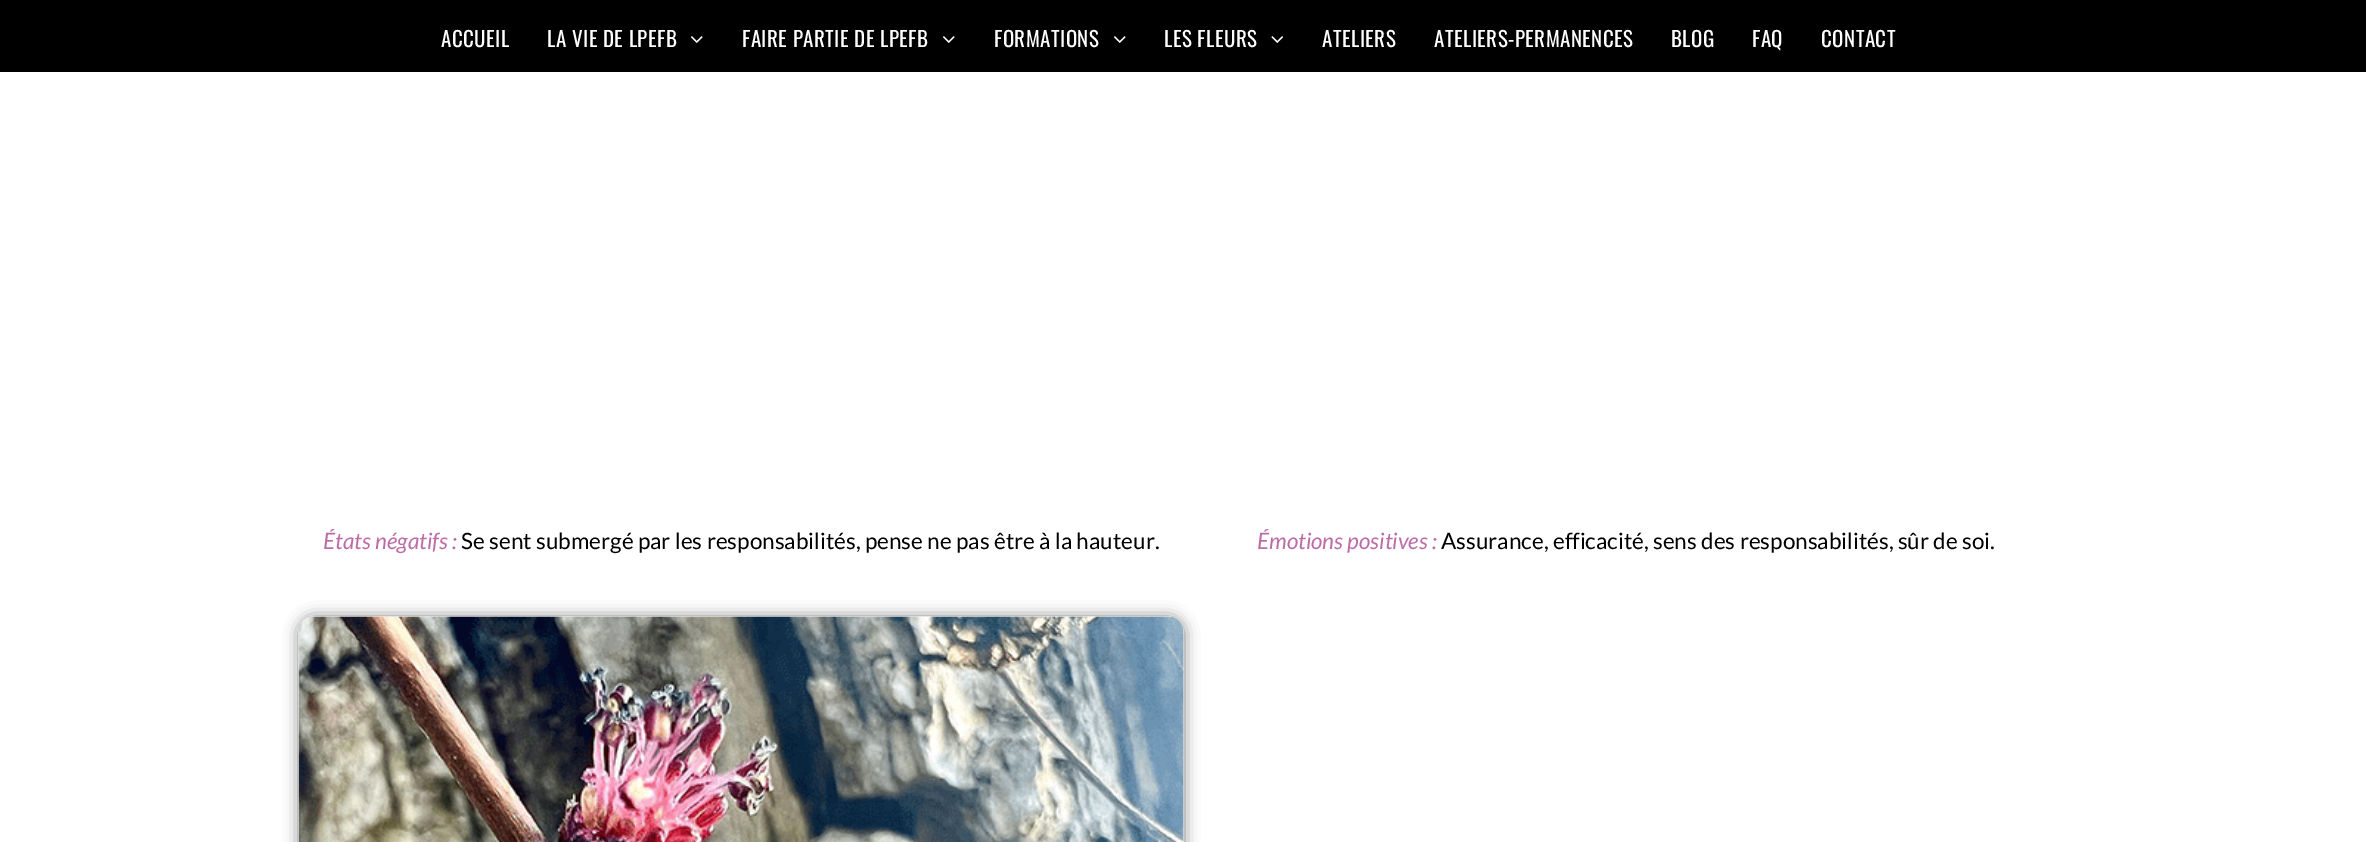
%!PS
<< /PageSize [2366 842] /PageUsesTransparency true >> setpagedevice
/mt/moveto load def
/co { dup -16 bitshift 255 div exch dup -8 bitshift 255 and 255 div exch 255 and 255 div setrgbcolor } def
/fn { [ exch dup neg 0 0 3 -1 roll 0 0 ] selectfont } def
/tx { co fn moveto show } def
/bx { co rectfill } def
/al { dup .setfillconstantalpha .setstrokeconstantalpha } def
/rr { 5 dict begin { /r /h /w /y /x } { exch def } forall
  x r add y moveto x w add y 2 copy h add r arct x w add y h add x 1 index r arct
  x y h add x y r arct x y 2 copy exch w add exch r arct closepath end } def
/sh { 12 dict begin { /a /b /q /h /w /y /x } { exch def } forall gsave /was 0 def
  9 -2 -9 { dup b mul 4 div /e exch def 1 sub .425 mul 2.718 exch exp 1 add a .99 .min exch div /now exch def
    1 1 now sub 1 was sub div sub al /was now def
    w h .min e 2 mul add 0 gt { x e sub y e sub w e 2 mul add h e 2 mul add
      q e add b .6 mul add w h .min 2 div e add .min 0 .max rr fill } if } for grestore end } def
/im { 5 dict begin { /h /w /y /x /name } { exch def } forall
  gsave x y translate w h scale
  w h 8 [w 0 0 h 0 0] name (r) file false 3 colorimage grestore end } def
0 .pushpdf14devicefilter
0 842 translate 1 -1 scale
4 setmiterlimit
0 0 2366 842 16#FFFFFF bx
0 0 2366 72 16#000000 bx
(media/1.raw) 691 36 12 7 im
(media/1.raw) 943 36 12 7 im
(media/1.raw) 1114 36 12 7 im
(media/2.raw) 1271 36 12 7 im
299 617 885 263 15 7.5 .5 sh
(media/3.raw) 298 616 886 226 im
/Oswald-Regular 21 fn
16#FFFFFF co
441 47 mt .45 0 (ACCUEIL) ashow
547 47 mt .45 0 (LA VIE DE LPEFB) ashow
742 47 mt .45 0 (FAIRE PARTIE DE LPEFB) ashow
994 47 mt .45 0 (FORMATIONS) ashow
1164 47 mt .45 0 (LES FLEURS) ashow
1322 47 mt .45 0 (ATELIERS) ashow
1434 47 mt .45 0 (ATELIERS-PERMANENCES) ashow
1671 47 mt .45 0 (BLOG) ashow
1752 47 mt .45 0 (FAQ) ashow
1821 47 mt .45 0 (CONTACT) ashow
(États négatifs :) 323 549 /Lato-Italic 22.5 16#BC6CA7 tx
(Se sent submergé par les responsabilités, pense ne pas être à la hauteur.) 461 549 /Lato-Regular 22.5 16#000000 tx
(Émotions positives :) 1257 549 /Lato-Italic 22.5 16#BC6CA7 tx
(Assurance, efficacité, sens des responsabilités, sûr de soi.) 1441 549 /Lato-Regular 22.5 16#000000 tx
.poppdf14devicefilter showpage
